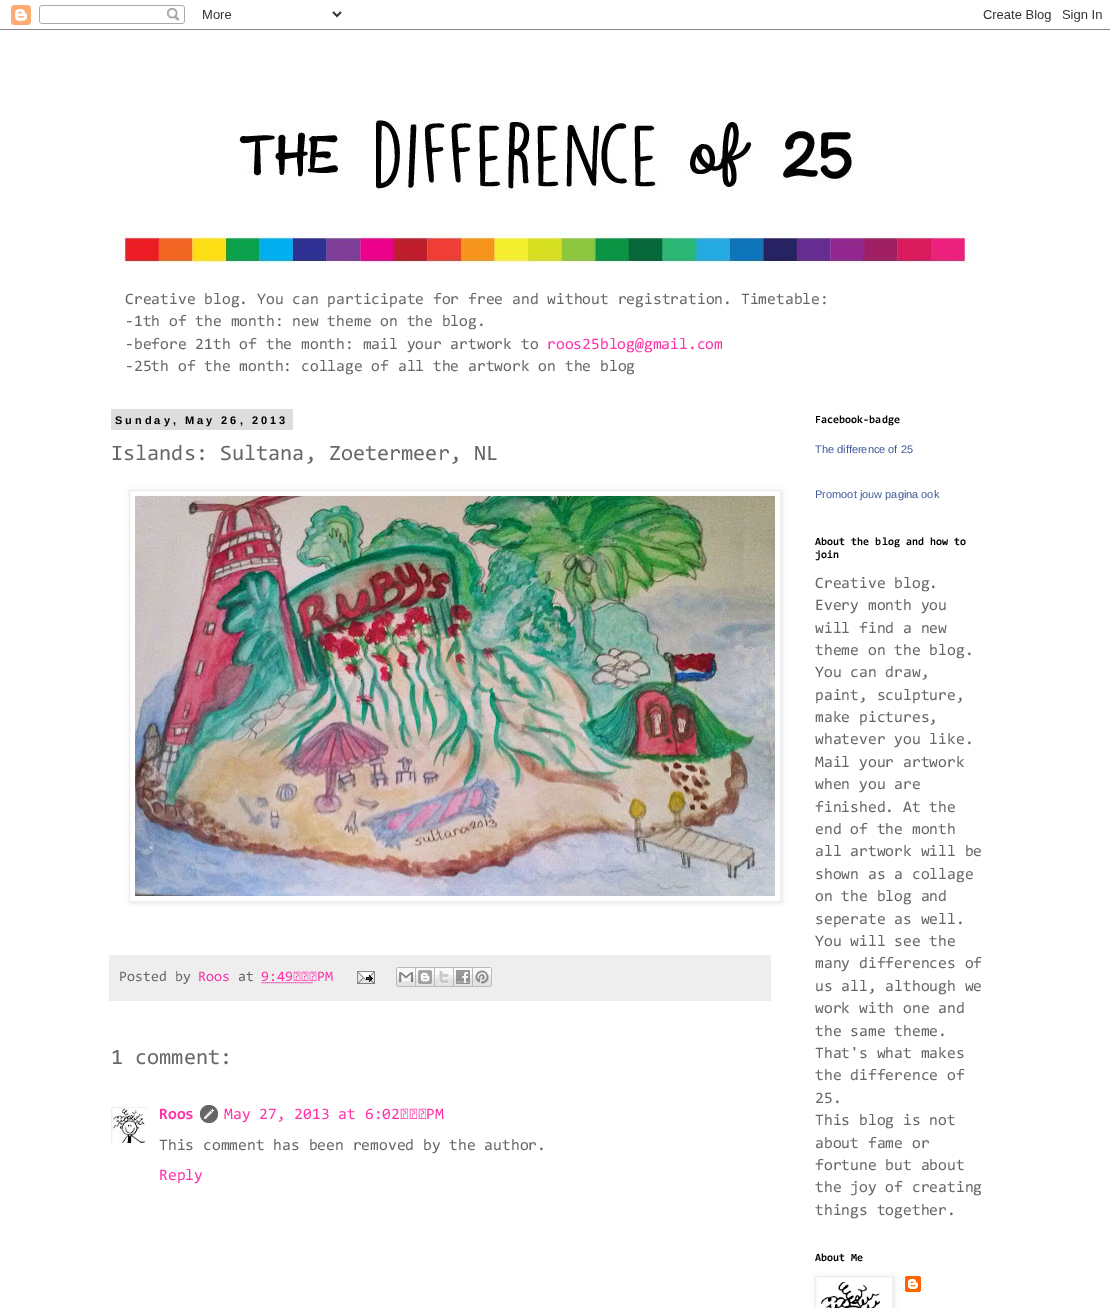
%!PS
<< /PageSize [1110 1308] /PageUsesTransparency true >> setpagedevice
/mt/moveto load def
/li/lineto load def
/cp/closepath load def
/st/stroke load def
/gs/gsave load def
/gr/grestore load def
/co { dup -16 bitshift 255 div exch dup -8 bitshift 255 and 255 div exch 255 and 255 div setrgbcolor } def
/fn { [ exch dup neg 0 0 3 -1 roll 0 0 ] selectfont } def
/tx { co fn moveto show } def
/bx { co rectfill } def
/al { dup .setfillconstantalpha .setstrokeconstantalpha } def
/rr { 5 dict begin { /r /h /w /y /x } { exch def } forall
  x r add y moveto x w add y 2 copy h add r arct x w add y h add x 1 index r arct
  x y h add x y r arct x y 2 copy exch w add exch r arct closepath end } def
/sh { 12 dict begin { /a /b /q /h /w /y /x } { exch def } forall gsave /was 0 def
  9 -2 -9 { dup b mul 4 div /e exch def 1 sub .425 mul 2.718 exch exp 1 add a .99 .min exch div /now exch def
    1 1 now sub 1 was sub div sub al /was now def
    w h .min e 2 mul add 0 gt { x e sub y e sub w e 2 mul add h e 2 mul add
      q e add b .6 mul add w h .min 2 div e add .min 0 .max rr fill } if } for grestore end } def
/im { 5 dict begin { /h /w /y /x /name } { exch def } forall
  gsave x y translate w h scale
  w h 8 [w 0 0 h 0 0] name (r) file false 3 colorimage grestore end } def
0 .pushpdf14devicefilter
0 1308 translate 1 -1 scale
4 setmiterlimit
0 0 1110 1308 16#FFFFFF bx
(media/1.raw) 0 5 1110 25 im
(media/2.raw) 112 120 863 145 im
111 409 182 21 16#DDDDDD bx
gs
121 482 mt 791 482 li 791 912 li 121 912 li cp 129 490 mt 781 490 li 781 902 li 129 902 li cp eoclip newpath
16#000000 co
130 491 652 412 0 2.5 .1 sh
gr
16#EEEEEE co
129.5 490.5 651 411 rectstroke
(media/3.raw) 135 496 640 400 im
109 955 662 46 16#EEEEEE bx
16#FF32A9 co
[1 1] 0 setdash
261.5 982.5 mt 313 982.5 li st
(media/4.raw) 357 971 18 13 im
(media/5.raw) 396 967 20 20 im
(media/6.raw) 416 967 19 20 im
(media/7.raw) 435 967 19 20 im
(media/8.raw) 454 967 19 20 im
(media/9.raw) 473 967 19 20 im
gs
111 1107 36 36 rectclip
16#EEEEEE co
[] 0 setdash
111.5 1107.5 37 37 rectstroke
gr
(media/10.raw) 113 1108 33 35 im
(media/11.raw) 200 1105 18 18 im
gs
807 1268 mt 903 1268 li 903 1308 li 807 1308 li cp 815 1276 mt 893 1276 li 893 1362 li 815 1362 li cp eoclip newpath
16#000000 co
816 1277 78 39 0 2.5 .1 sh
gr
16#EEEEEE co
[] 0 setdash
815.5 1276.5 77 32 rectstroke
(media/12.raw) 821 1281 59 27 im
(media/13.raw) 905 1276 16 16 im
(Creative blog. You can participate for free and without registration. Timetable:) 125 304 /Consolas-Regular 16 16#666666 tx
(-1th of the month: new theme on the blog.) 125 326 /Consolas-Regular 16 16#666666 tx
(-before 21th of the month: mail your artwork to) 125 349 /Consolas-Regular 16 16#666666 tx
(roos25blog@gmail.com) 547 349 /Consolas-Regular 16 16#FF32A9 tx
(-25th of the month: collage of all the artwork on the blog) 125 371 /Consolas-Regular 16 16#666666 tx
/LiberationSans-Bold 11 fn
16#000000 co
115 424 mt 3 0 (Sunday, May 26, 2013) ashow
(Islands: Sultana, Zoetermeer, NL) 111 460 /Consolas-Regular 22 16#666666 tx
(Posted by) 119 981 /Consolas-Regular 14.5 16#666666 tx
(Roos) 198 981 /Consolas-Regular 14.5 16#FF32A9 tx
(at) 238 981 /Consolas-Regular 14.5 16#666666 tx
(9:49 PM) 261 981 /Consolas-Regular 14.5 16#FF32A9 tx
(1 comment:) 111 1064 /Consolas-Regular 22 16#666666 tx
(Roos) 159 1119 /Consolas-Bold 16 16#FF32A9 tx
(May 27, 2013 at 6:02 PM) 224 1119 /Consolas-Regular 16 16#FF32A9 tx
(This comment has been removed by the author.) 159 1150 /Consolas-Regular 16 16#666666 tx
(Reply) 159 1180 /Consolas-Regular 16 16#FF32A9 tx
(Facebook-badge) 815 423 /Consolas-Bold 11 16#000000 tx
(The difference of 25) 815 453 /LiberationSans-Regular 11 16#3B5998 tx
(Promoot jouw pagina ook) 815 498 /LiberationSans-Regular 11 16#3B5998 tx
(About the blog and how to) 815 545 /Consolas-Bold 11 16#000000 tx
(join) 815 558 /Consolas-Bold 11 16#000000 tx
(Creative blog.) 815 588 /Consolas-Regular 16 16#666666 tx
(Every month you) 815 610 /Consolas-Regular 16 16#666666 tx
(will find a new) 815 633 /Consolas-Regular 16 16#666666 tx
(theme on the blog.) 815 655 /Consolas-Regular 16 16#666666 tx
(You can draw,) 815 677 /Consolas-Regular 16 16#666666 tx
(paint, sculpture,) 815 700 /Consolas-Regular 16 16#666666 tx
(make pictures,) 815 722 /Consolas-Regular 16 16#666666 tx
(whatever you like.) 815 744 /Consolas-Regular 16 16#666666 tx
(Mail your artwork) 815 767 /Consolas-Regular 16 16#666666 tx
(when you are) 815 789 /Consolas-Regular 16 16#666666 tx
(finished. At the) 815 812 /Consolas-Regular 16 16#666666 tx
(end of the month) 815 834 /Consolas-Regular 16 16#666666 tx
(all artwork will be) 815 856 /Consolas-Regular 16 16#666666 tx
(shown as a collage) 815 879 /Consolas-Regular 16 16#666666 tx
(on the blog and) 815 901 /Consolas-Regular 16 16#666666 tx
(seperate as well.) 815 924 /Consolas-Regular 16 16#666666 tx
(You will see the) 815 946 /Consolas-Regular 16 16#666666 tx
(many differences of) 815 968 /Consolas-Regular 16 16#666666 tx
(us all, although we) 815 991 /Consolas-Regular 16 16#666666 tx
(work with one and) 815 1013 /Consolas-Regular 16 16#666666 tx
(the same theme.) 815 1036 /Consolas-Regular 16 16#666666 tx
(That's what makes) 815 1058 /Consolas-Regular 16 16#666666 tx
(the difference of) 815 1080 /Consolas-Regular 16 16#666666 tx
(25.) 815 1103 /Consolas-Regular 16 16#666666 tx
(This blog is not) 815 1125 /Consolas-Regular 16 16#666666 tx
(about fame or) 815 1148 /Consolas-Regular 16 16#666666 tx
(fortune but about) 815 1170 /Consolas-Regular 16 16#666666 tx
(the joy of creating) 815 1192 /Consolas-Regular 16 16#666666 tx
(things together.) 815 1215 /Consolas-Regular 16 16#666666 tx
(About Me) 815 1261 /Consolas-Bold 11 16#000000 tx
.poppdf14devicefilter showpage
